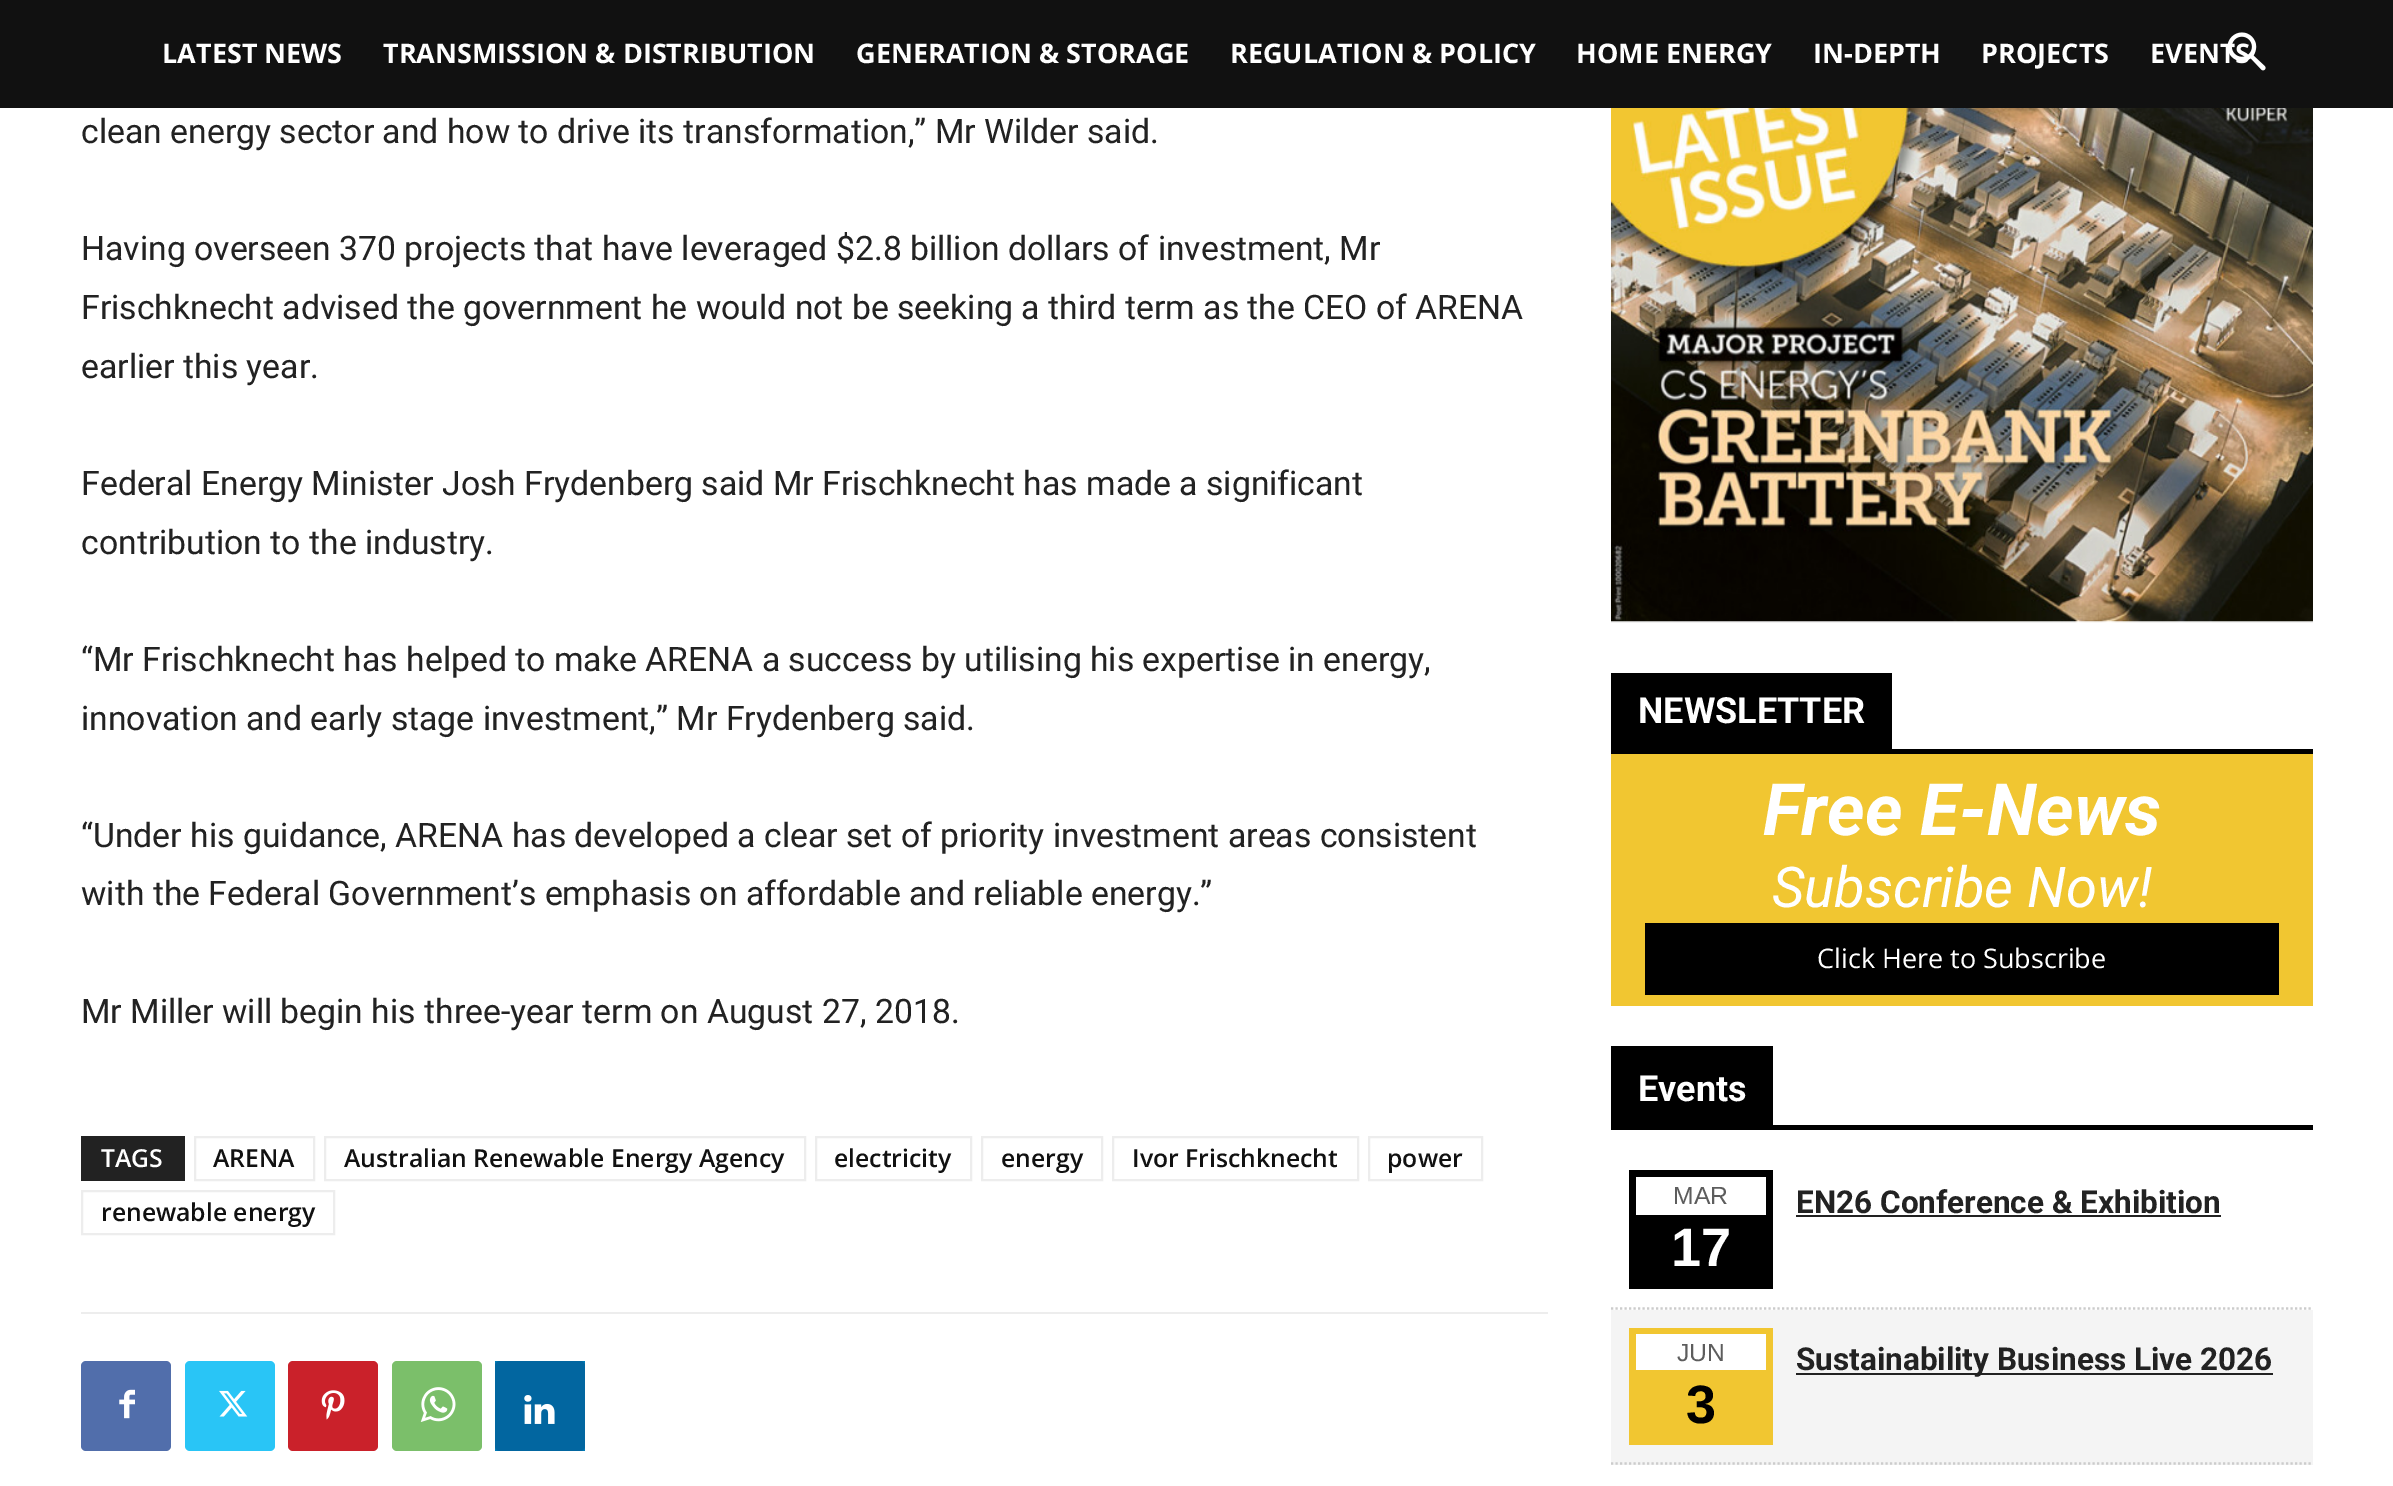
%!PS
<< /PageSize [2393 1486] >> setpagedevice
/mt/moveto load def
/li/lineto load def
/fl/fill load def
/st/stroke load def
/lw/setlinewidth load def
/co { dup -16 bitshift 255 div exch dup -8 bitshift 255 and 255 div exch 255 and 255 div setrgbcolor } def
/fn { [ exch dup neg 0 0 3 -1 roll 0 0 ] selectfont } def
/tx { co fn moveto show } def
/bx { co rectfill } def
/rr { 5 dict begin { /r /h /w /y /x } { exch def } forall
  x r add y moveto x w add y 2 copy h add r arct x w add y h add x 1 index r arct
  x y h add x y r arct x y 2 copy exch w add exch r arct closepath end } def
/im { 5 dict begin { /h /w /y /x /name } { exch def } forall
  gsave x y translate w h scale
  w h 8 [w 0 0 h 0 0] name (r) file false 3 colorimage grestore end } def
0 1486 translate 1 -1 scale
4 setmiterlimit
0 0 2393 1486 16#FFFFFF bx
0 0 2393 108 16#111111 bx
81 1136 104 45 16#222222 bx
16#EDEDED co
2 lw
195 1137 119 43 rectstroke
325 1137 480 43 rectstroke
816 1137 155 43 rectstroke
982 1137 120 43 rectstroke
1113 1137 245 43 rectstroke
1369 1137 113 43 rectstroke
82 1191 252 43 rectstroke
81 1312 1467 2 16#EDEDED bx
16#516EAB co
81 1361 90 90 5 rr fl
(media/2.raw) 119 1389 16 30 im
16#29C5F6 co
185 1361 90 90 5 rr fl
(media/3.raw) 219 1390 29 27 im
16#CA212A co
288 1361 90 90 5 rr fl
(media/4.raw) 321 1390 24 30 im
16#7BBF6A co
392 1361 90 90 5 rr fl
(media/5.raw) 420 1387 36 35 im
495 1361 90 90 16#007BB6 bx
16#0266A0 co
495 1361 90 90 5 rr fl
(media/6.raw) 524 1395 31 29 im
(media/7.raw) 1611 108 702 515 im
1611 749 702 5 16#000000 bx
1611 673 281 76 16#000000 bx
1611 754 702 252 16#F1C631 bx
1645 923 634 72 16#000000 bx
1611 1125 702 5 16#000000 bx
1611 1046 162 79 16#000000 bx
16#CCCCCC co
2.2 lw
[2.25 2.25] 0 setdash
1611 1308.5 mt 2313 1308.5 li st
1629 1170 144 119 16#000000 bx
1636 1177 130 38 16#FFFFFF bx
1796 1215 425 2 16#222222 bx
1611 1310 702 155 16#F4F4F4 bx
16#CCCCCC co
1611 1463.5 mt 2313 1463.5 li st
1629 1328 144 117 16#F1C631 bx
1636 1334 130 36 16#FFFFFF bx
1796 1373 477 2 16#222222 bx
(LATEST NEWS) 162 63 /OpenSans-Bold 27 16#FFFFFF tx
(TRANSMISSION & DISTRIBUTION) 383 63 /OpenSans-Bold 27 16#FFFFFF tx
(GENERATION & STORAGE) 856 63 /OpenSans-Bold 27 16#FFFFFF tx
(REGULATION & POLICY) 1230 63 /OpenSans-Bold 27 16#FFFFFF tx
(HOME ENERGY) 1576 63 /OpenSans-Bold 27 16#FFFFFF tx
(IN-DEPTH) 1813 63 /OpenSans-Bold 27 16#FFFFFF tx
(PROJECTS) 1981 63 /OpenSans-Bold 27 16#FFFFFF tx
(EVENTS) 2150 63 /OpenSans-Bold 27 16#FFFFFF tx
(media/1.raw) 2227 32 39 39 im
(clean energy sector and how to drive its transformation,” Mr Wilder said.) 81 143 /Roboto-Regular 33.75 16#222222 tx
(Having overseen 370 projects that have leveraged $2.8 billion dollars of investment, Mr) 81 260 /Roboto-Regular 33.75 16#222222 tx
(Frischknecht advised the government he would not be seeking a third term as the CEO of ARENA) 81 319 /Roboto-Regular 33.75 16#222222 tx
(earlier this year.) 81 378 /Roboto-Regular 33.75 16#222222 tx
(Federal Energy Minister Josh Frydenberg said Mr Frischknecht has made a significant) 81 495 /Roboto-Regular 33.75 16#222222 tx
(contribution to the industry.) 81 554 /Roboto-Regular 33.75 16#222222 tx
(“Mr Frischknecht has helped to make ARENA a success by utilising his expertise in energy,) 81 671 /Roboto-Regular 33.75 16#222222 tx
(innovation and early stage investment,” Mr Frydenberg said.) 81 730 /Roboto-Regular 33.75 16#222222 tx
(“Under his guidance, ARENA has developed a clear set of priority investment areas consistent) 81 847 /Roboto-Regular 33.75 16#222222 tx
(with the Federal Government’s emphasis on affordable and reliable energy.”) 81 905 /Roboto-Regular 33.75 16#222222 tx
(Mr Miller will begin his three-year term on August 27, 2018.) 81 1023 /Roboto-Regular 33.75 16#222222 tx
(TAGS) 101 1167 /OpenSans-SemiBold 24.75 16#FFFFFF tx
(ARENA) 213 1167 /OpenSans-SemiBold 24.75 16#111111 tx
(Australian Renewable Energy Agency) 344 1167 /OpenSans-SemiBold 24.75 16#111111 tx
(electricity) 834 1167 /OpenSans-SemiBold 24.75 16#111111 tx
(energy) 1001 1167 /OpenSans-SemiBold 24.75 16#111111 tx
(Ivor Frischknecht) 1132 1167 /OpenSans-SemiBold 24.75 16#111111 tx
(power) 1387 1167 /OpenSans-SemiBold 24.75 16#111111 tx
(renewable energy) 101 1221 /OpenSans-SemiBold 24.75 16#111111 tx
(NEWSLETTER) 1638 723 /Roboto-Bold 36 16#FFFFFF tx
(Free E-News) 1763 835 /Roboto-BoldItalic 72 16#FFFFFF tx
(Subscribe Now!) 1772 907 /Roboto-Italic 56.25 16#FFFFFF tx
(Click Here to Subscribe) 1817 968 /OpenSans-Regular 27 16#FFFFFF tx
(Events) 1638 1101 /Roboto-Bold 36 16#FFFFFF tx
(MAR) 1673 1204 /LiberationSans-Regular 24.75 16#5D5D5D tx
(17) 1671 1266 /LiberationSans-Bold 54 16#FFFFFF tx
(EN26 Conference & Exhibition) 1796 1213 /Roboto-Bold 31.5 16#222222 tx
(JUN) 1677 1361 /LiberationSans-Regular 24.75 16#5D5D5D tx
(3) 1686 1423 /LiberationSans-Bold 54 16#000000 tx
(Sustainability Business Live 2026) 1796 1370 /Roboto-Bold 31.5 16#222222 tx
showpage
